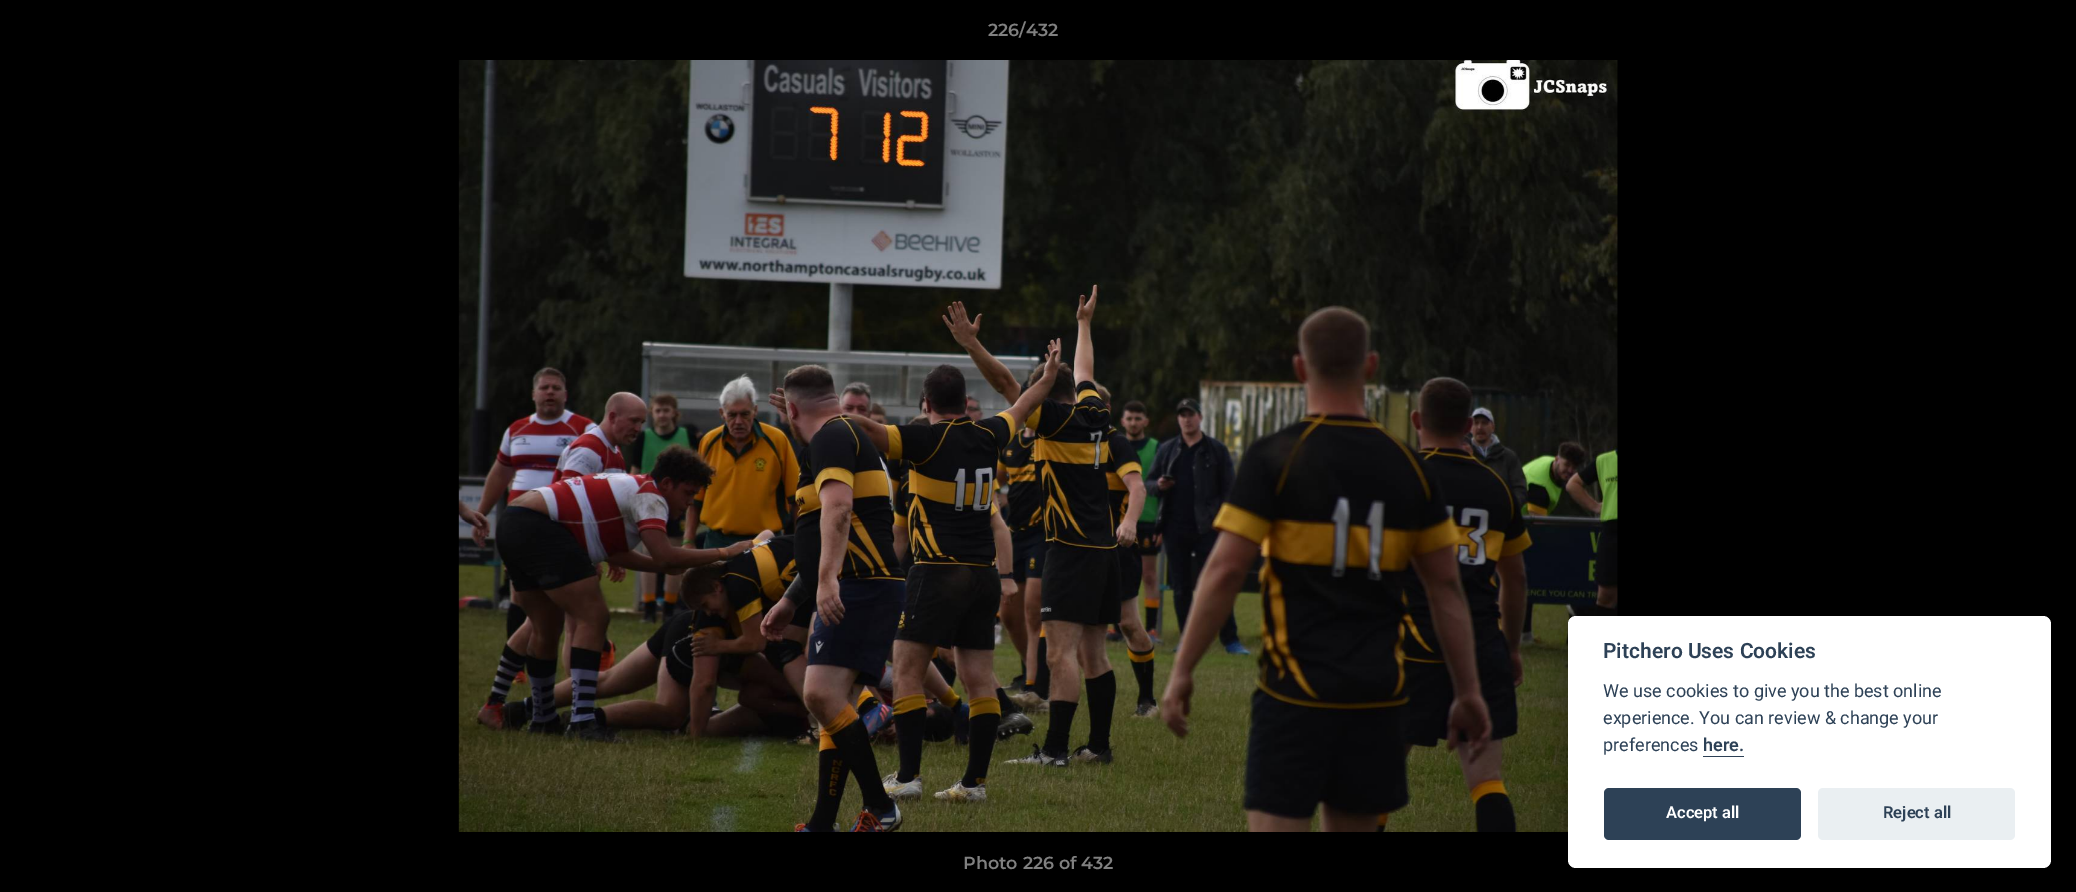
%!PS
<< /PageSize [2076 892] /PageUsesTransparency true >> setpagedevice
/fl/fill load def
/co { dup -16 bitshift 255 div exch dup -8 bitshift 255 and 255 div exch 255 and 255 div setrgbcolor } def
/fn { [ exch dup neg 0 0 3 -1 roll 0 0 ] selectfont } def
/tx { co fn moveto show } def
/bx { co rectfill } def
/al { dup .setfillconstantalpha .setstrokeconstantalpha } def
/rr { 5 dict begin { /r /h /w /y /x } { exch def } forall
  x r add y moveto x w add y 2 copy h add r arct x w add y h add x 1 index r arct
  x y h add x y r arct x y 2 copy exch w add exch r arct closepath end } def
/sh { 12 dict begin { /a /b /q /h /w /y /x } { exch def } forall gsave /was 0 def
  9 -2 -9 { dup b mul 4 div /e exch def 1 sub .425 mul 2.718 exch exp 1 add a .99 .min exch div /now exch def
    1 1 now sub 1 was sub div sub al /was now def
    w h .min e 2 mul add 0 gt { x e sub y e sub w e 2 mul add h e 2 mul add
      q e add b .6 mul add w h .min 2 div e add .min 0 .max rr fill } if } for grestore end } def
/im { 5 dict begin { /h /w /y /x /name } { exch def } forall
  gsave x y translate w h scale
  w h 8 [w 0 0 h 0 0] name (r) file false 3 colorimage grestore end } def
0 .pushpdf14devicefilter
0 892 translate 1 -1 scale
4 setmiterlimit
0 0 2076 892 16#000000 bx
(media/1.raw) 458 60 1160 772 im
16#020203 co
1568 629 483 251 8 19 .28 sh
16#FFFFFF co
1568 616 483 252 8 rr fl
1703 756 41 1 16#2D4156 bx
1604 788 197 52 5 rr fl
16#EAEFF2 co
1818 788 197 52 5 rr fl
(226/432) 988 36 /Montserrat-SemiBold 17.5 16#808080 tx
(Photo 226 of 432) 963 869 /Montserrat-SemiBold 17.5 16#808080 tx
(Pitchero Uses Cookies) 1603 658 /Roboto-SemiBold 21 16#2D4156 tx
(We use cookies to give you the best online) 1603 697 /Roboto-Regular 18 16#2D4156 tx
(experience. You can review & change your) 1603 724 /Roboto-Regular 18 16#2D4156 tx
(preferences) 1603 751 /Roboto-Regular 18 16#2D4156 tx
(here.) 1703 751 /Roboto-SemiBold 18 16#2D4156 tx
(Accept all) 1666 818 /Roboto-SemiBold 16.5 16#FFFFFF tx
(Reject all) 1883 818 /Roboto-SemiBold 16.5 16#2D4156 tx
.poppdf14devicefilter showpage
